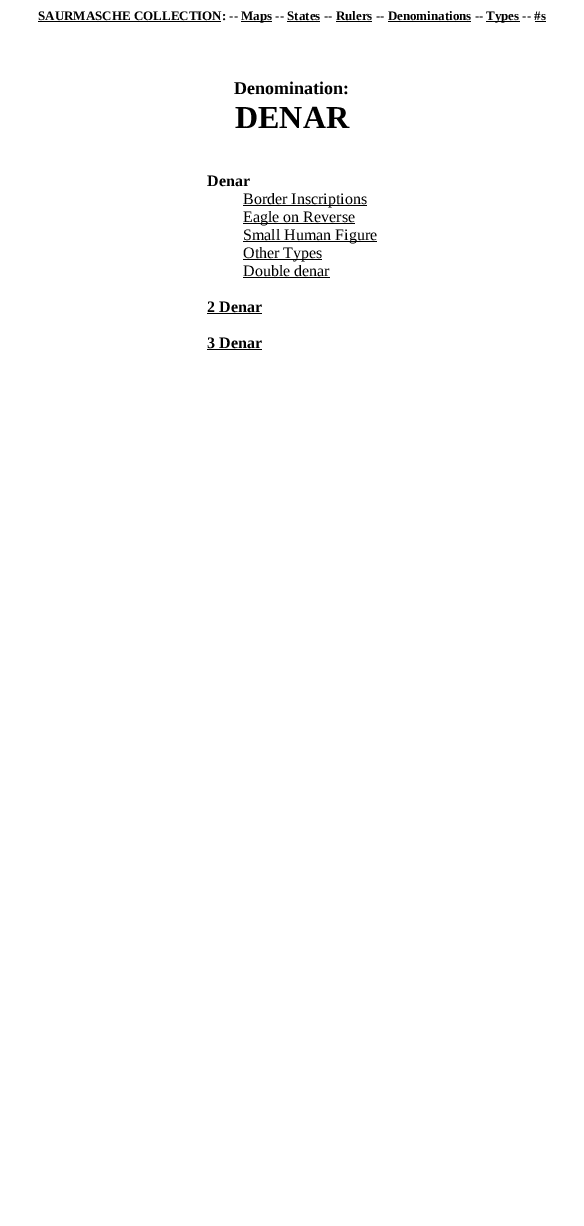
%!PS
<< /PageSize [584 1226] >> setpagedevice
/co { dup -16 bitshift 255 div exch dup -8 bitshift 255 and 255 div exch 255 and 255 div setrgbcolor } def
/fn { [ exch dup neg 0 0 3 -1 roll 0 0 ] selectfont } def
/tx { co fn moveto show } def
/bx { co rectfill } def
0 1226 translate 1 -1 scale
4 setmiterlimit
0 0 584 1226 16#FFFFFF bx
38 21 183 1 16#000000 bx
241 21 31 1 16#000000 bx
287 21 33 1 16#000000 bx
336 21 36 1 16#000000 bx
388 21 83 1 16#000000 bx
486 21 34 1 16#000000 bx
535 21 11 1 16#000000 bx
243 205 124 1 16#000000 bx
243 223 112 1 16#000000 bx
243 241 134 1 16#000000 bx
243 259 79 1 16#000000 bx
243 277 87 1 16#000000 bx
207 313 55 1 16#000000 bx
207 349 55 1 16#000000 bx
(SAURMASCHE COLLECTION: --) 38 20 /LiberationSerif-Bold 13 16#000000 tx
(Maps -- States -- Rulers -- Denominations --) 241 20 /LiberationSerif-Bold 13 16#000000 tx
(Types -- #s) 486 20 /LiberationSerif-Bold 13 16#000000 tx
(Denomination:) 234 94 /LiberationSerif-Bold 18 16#000000 tx
(DENAR) 235 128 /LiberationSerif-Bold 32 16#000000 tx
(Denar) 207 186 /LiberationSerif-Bold 16 16#000000 tx
(Border Inscriptions) 243 204 /LiberationSerif-Regular 16 16#000000 tx
(Eagle on Reverse) 243 222 /LiberationSerif-Regular 16 16#000000 tx
(Small Human Figure) 243 240 /LiberationSerif-Regular 16 16#000000 tx
(Other Types) 243 258 /LiberationSerif-Regular 16 16#000000 tx
(Double denar) 243 276 /LiberationSerif-Regular 16 16#000000 tx
(2 Denar) 207 312 /LiberationSerif-Bold 16 16#000000 tx
(3 Denar) 207 348 /LiberationSerif-Bold 16 16#000000 tx
showpage
